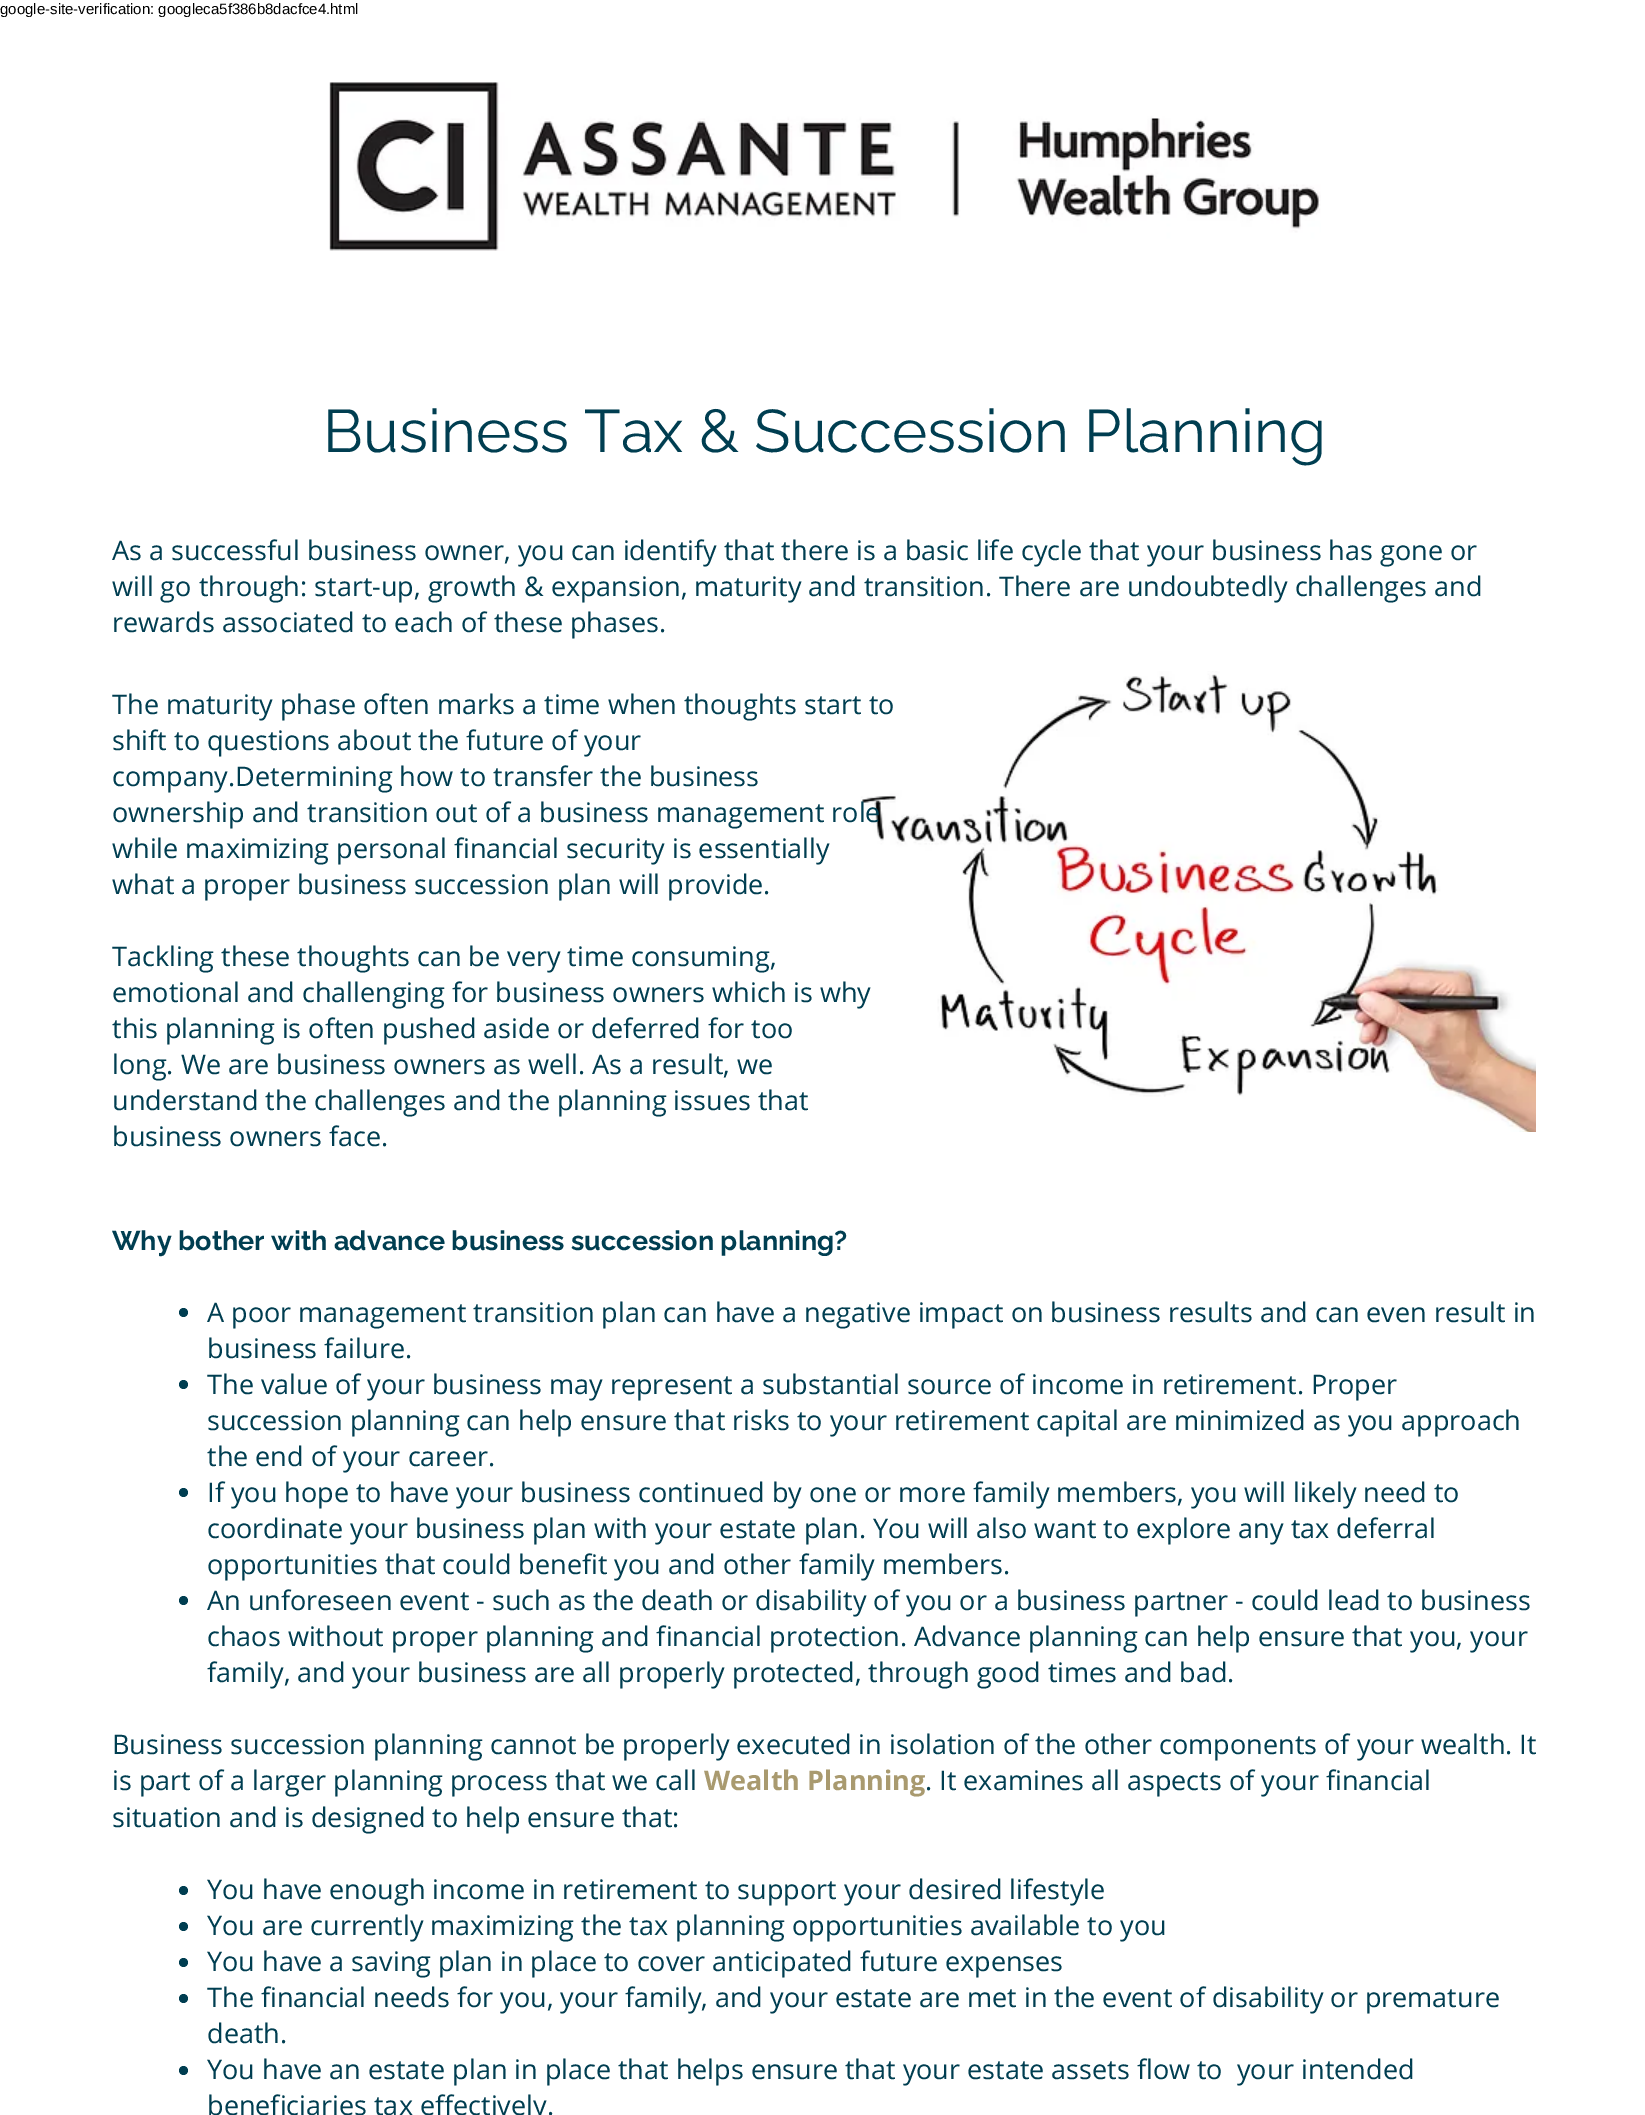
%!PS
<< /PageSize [1645 2115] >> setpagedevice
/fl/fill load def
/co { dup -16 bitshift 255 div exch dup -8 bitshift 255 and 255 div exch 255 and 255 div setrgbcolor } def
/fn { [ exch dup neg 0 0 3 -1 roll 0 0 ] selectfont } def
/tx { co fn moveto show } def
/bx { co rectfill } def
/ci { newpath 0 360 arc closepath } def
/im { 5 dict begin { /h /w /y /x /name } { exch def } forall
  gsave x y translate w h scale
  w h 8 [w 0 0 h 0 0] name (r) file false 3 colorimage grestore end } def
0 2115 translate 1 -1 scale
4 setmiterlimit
0 0 1645 2115 16#FFFFFF bx
(media/1.raw) 329 82 992 169 im
(media/2.raw) 860 671 676 461 im
16#003E51 co
183.5 1312.5 4.5 ci fl
183.5 1384.5 4.5 ci fl
183.5 1492.5 4.5 ci fl
183.5 1600.5 4.5 ci fl
183.5 1890.5 4.5 ci fl
183.5 1926.5 4.5 ci fl
183.5 1962.5 4.5 ci fl
183.5 1998.5 4.5 ci fl
183.5 2070.5 4.5 ci fl
(google-site-verification: googleca5f386b8dacfce4.html) 0 14 /LiberationSans-Regular 15 16#000000 tx
3 17 185 1 16#FFFFFF bx
(Business Tax & Succession Planning) 323 452 /Raleway-Regular 60 16#003E51 tx
(As a successful business owner, you can identify that there is a basic life cycle that your business has gone or) 112 560 /OpenSans-Regular 27 16#003E51 tx
(will go through: start-up, growth & expansion, maturity and transition. There are undoubtedly challenges and) 112 596 /OpenSans-Regular 27 16#003E51 tx
(rewards associated to each of these phases.) 112 632 /OpenSans-Regular 27 16#003E51 tx
(The maturity phase often marks a time when thoughts start to) 112 714 /OpenSans-Regular 27 16#003E51 tx
(shift to questions about the future of your) 112 750 /OpenSans-Regular 27 16#003E51 tx
(company.Determining how to transfer the business) 112 786 /OpenSans-Regular 27 16#003E51 tx
(ownership and transition out of a business management role) 112 822 /OpenSans-Regular 27 16#003E51 tx
(while maximizing personal financial security is essentially) 112 858 /OpenSans-Regular 27 16#003E51 tx
(what a proper business succession plan will provide.) 112 894 /OpenSans-Regular 27 16#003E51 tx
(Tackling these thoughts can be very time consuming,) 112 966 /OpenSans-Regular 27 16#003E51 tx
(emotional and challenging for business owners which is why) 112 1002 /OpenSans-Regular 27 16#003E51 tx
(this planning is often pushed aside or deferred for too) 112 1038 /OpenSans-Regular 27 16#003E51 tx
(long. We are business owners as well. As a result, we) 112 1074 /OpenSans-Regular 27 16#003E51 tx
(understand the challenges and the planning issues that) 112 1110 /OpenSans-Regular 27 16#003E51 tx
(business owners face.) 112 1146 /OpenSans-Regular 27 16#003E51 tx
(Why bother with advance business succession planning?) 112 1250 /Raleway-Bold 27 16#003E51 tx
(A poor management transition plan can have a negative impact on business results and can even result in) 207 1322 /OpenSans-Regular 27 16#003E51 tx
(business failure.) 207 1358 /OpenSans-Regular 27 16#003E51 tx
(The value of your business may represent a substantial source of income in retirement. Proper) 207 1394 /OpenSans-Regular 27 16#003E51 tx
(succession planning can help ensure that risks to your retirement capital are minimized as you approach) 207 1430 /OpenSans-Regular 27 16#003E51 tx
(the end of your career.) 207 1466 /OpenSans-Regular 27 16#003E51 tx
(If you hope to have your business continued by one or more family members, you will likely need to) 207 1502 /OpenSans-Regular 27 16#003E51 tx
(coordinate your business plan with your estate plan. You will also want to explore any tax deferral) 207 1538 /OpenSans-Regular 27 16#003E51 tx
(opportunities that could benefit you and other family members.) 207 1574 /OpenSans-Regular 27 16#003E51 tx
(An unforeseen event - such as the death or disability of you or a business partner - could lead to business) 207 1610 /OpenSans-Regular 27 16#003E51 tx
(chaos without proper planning and financial protection. Advance planning can help ensure that you, your) 207 1646 /OpenSans-Regular 27 16#003E51 tx
(family, and your business are all properly protected, through good times and bad.) 207 1682 /OpenSans-Regular 27 16#003E51 tx
(Business succession planning cannot be properly executed in isolation of the other components of your wealth. It) 112 1754 /OpenSans-Regular 27 16#003E51 tx
(is part of a larger planning process that we call) 112 1790 /OpenSans-Regular 27 16#003E51 tx
(Wealth Planning) 704 1790 /OpenSans-Bold 27 16#A99A6F tx
(. It examines all aspects of your financial) 925 1790 /OpenSans-Regular 27 16#003E51 tx
(situation and is designed to help ensure that:) 112 1827 /OpenSans-Regular 27 16#003E51 tx
(You have enough income in retirement to support your desired lifestyle) 207 1899 /OpenSans-Regular 27 16#003E51 tx
(You are currently maximizing the tax planning opportunities available to you) 207 1935 /OpenSans-Regular 27 16#003E51 tx
(You have a saving plan in place to cover anticipated future expenses) 207 1971 /OpenSans-Regular 27 16#003E51 tx
(The financial needs for you, your family, and your estate are met in the event of disability or premature) 207 2007 /OpenSans-Regular 27 16#003E51 tx
(death.) 207 2043 /OpenSans-Regular 27 16#003E51 tx
(You have an estate plan in place that helps ensure that your estate assets flow to  your intended) 207 2079 /OpenSans-Regular 27 16#003E51 tx
(beneficiaries tax effectively.) 207 2115 /OpenSans-Regular 27 16#003E51 tx
showpage
